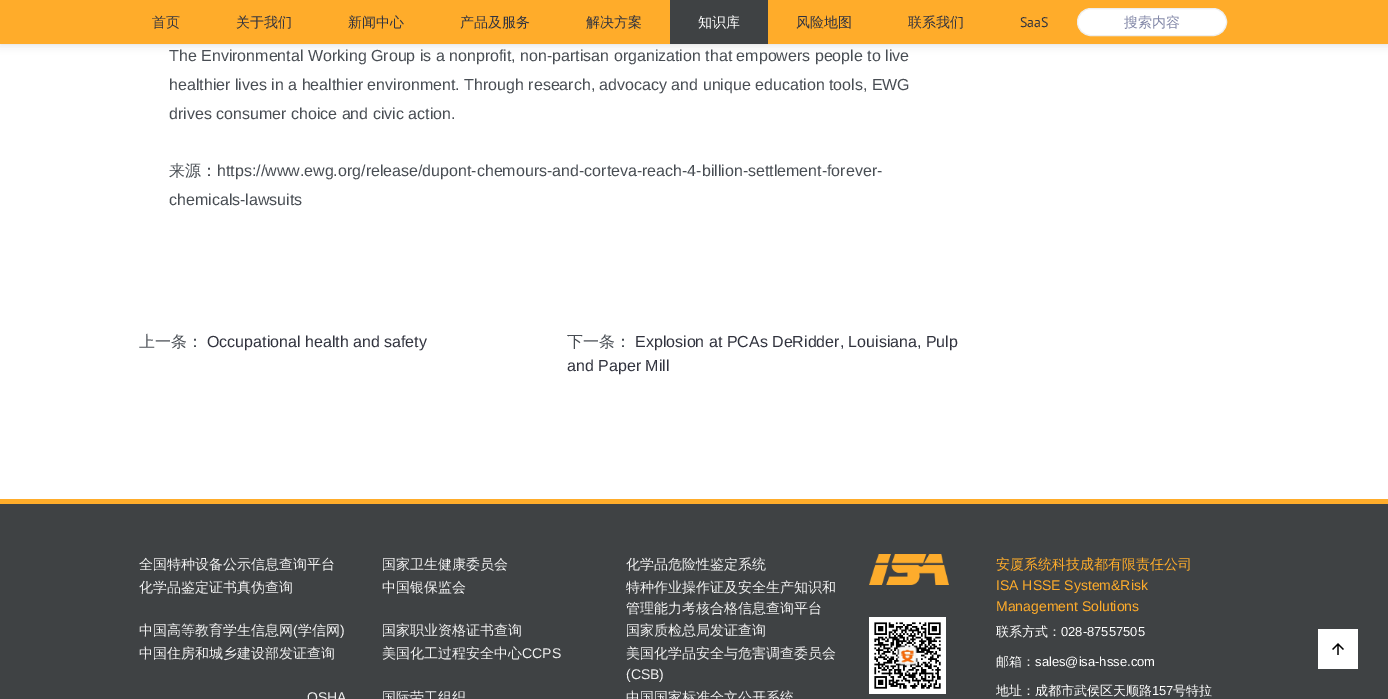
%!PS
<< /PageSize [1388 699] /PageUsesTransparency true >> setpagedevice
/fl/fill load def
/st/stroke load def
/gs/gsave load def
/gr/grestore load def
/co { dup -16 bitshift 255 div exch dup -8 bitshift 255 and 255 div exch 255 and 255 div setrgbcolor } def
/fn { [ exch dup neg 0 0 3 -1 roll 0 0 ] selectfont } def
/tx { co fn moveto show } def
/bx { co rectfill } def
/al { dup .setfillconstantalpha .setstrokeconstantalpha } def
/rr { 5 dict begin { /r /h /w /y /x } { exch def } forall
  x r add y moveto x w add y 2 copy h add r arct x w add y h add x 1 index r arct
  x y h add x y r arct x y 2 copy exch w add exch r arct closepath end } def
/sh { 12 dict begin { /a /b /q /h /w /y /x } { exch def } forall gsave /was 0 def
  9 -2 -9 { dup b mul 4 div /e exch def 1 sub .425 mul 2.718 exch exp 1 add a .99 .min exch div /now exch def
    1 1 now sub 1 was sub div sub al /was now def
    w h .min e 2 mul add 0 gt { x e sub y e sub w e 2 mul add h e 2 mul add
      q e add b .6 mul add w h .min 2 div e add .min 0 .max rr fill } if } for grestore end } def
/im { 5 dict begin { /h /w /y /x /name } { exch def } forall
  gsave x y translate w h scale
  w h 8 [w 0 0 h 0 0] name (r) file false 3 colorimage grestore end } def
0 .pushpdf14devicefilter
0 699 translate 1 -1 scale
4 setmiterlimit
0 0 1388 699 16#FFFFFF bx
16#000000 co
0 0 1388 44 0 5 .15 sh
0 0 1388 44 16#FFAC2A bx
670 0 98 44 16#3F4244 bx
16#FFFFFF co
1077.5 8.5 149 27 13.5 rr gs fl gr
16#EEEEEE co
st
0 499 1388 5 16#FFAC2A bx
0 504 1388 195 16#3F4244 bx
(media/1.raw) 869 554 80 31 im
(media/2.raw) 869 617 77 77 im
1318 629 40 40 16#FFFFFF bx
(media/3.raw) 1332 643 12 12 im
(首页) 152 27 /WenQuanYiZenHei-Medium 14 16#31333E tx
(关于我们) 236 27 /WenQuanYiZenHei-Medium 14 16#31333E tx
(新闻中心) 348 27 /WenQuanYiZenHei-Medium 14 16#31333E tx
(产品及服务) 460 27 /WenQuanYiZenHei-Medium 14 16#31333E tx
(解决方案) 586 27 /WenQuanYiZenHei-Medium 14 16#31333E tx
(知识库) 698 27 /WenQuanYiZenHei-Medium 14 16#FFFFFF tx
(风险地图) 796 27 /WenQuanYiZenHei-Medium 14 16#31333E tx
(联系我们) 908 27 /WenQuanYiZenHei-Medium 14 16#31333E tx
(SaaS) 1020 27 /PTSans-Regular 14 16#31333E tx
(搜索内容) 1124 27 /WenQuanYiZenHei-Medium 14 16#8287A7 tx
(The Environmental Working Group is a nonprofit, non-partisan organization that empowers people to live) 169 61 /LiberationSans-Regular 16 16#484D53 tx
(healthier lives in a healthier environment. Through research, advocacy and unique education tools, EWG) 169 90 /LiberationSans-Regular 16 16#484D53 tx
(drives consumer choice and civic action.) 169 119 /LiberationSans-Regular 16 16#484D53 tx
(来源：) 169 176 /WenQuanYiZenHei-Medium 16 16#484D53 tx
(https://www.ewg.org/release/dupont-chemours-and-corteva-reach-4-billion-settlement-forever-) 217 176 /LiberationSans-Regular 16 16#484D53 tx
(chemicals-lawsuits) 169 205 /LiberationSans-Regular 16 16#484D53 tx
(上一条：) 139 347 /WenQuanYiZenHei-Medium 16 16#484D53 tx
(Occupational health and safety) 207 347 /LiberationSans-Regular 16 16#31333E tx
(下一条：) 567 347 /WenQuanYiZenHei-Medium 16 16#484D53 tx
(Explosion at PCAs DeRidder, Louisiana, Pulp) 635 347 /LiberationSans-Regular 16 16#31333E tx
(and Paper Mill) 567 371 /LiberationSans-Regular 16 16#31333E tx
(全国特种设备公示信息查询平台) 139 569 /WenQuanYiZenHei-Medium 14 16#F1F1F1 tx
(国家卫生健康委员会) 382 569 /WenQuanYiZenHei-Medium 14 16#F1F1F1 tx
(化学品危险性鉴定系统) 626 569 /WenQuanYiZenHei-Medium 14 16#F1F1F1 tx
(化学品鉴定证书真伪查询) 139 592 /WenQuanYiZenHei-Medium 14 16#F1F1F1 tx
(中国银保监会) 382 592 /WenQuanYiZenHei-Medium 14 16#F1F1F1 tx
(特种作业操作证及安全生产知识和) 626 592 /WenQuanYiZenHei-Medium 14 16#F1F1F1 tx
(管理能力考核合格信息查询平台) 626 613 /WenQuanYiZenHei-Medium 14 16#F1F1F1 tx
(中国高等教育学生信息网) 139 635 /WenQuanYiZenHei-Medium 14 16#F1F1F1 tx
(\() 293 635 /LiberationSans-Regular 14 16#F1F1F1 tx
(学信网) 298 635 /WenQuanYiZenHei-Medium 14 16#F1F1F1 tx
(\)) 340 635 /LiberationSans-Regular 14 16#F1F1F1 tx
(国家职业资格证书查询) 382 635 /WenQuanYiZenHei-Medium 14 16#F1F1F1 tx
(国家质检总局发证查询) 626 635 /WenQuanYiZenHei-Medium 14 16#F1F1F1 tx
(中国住房和城乡建设部发证查询) 139 658 /WenQuanYiZenHei-Medium 14 16#F1F1F1 tx
(美国化工过程安全中心) 382 658 /WenQuanYiZenHei-Medium 14 16#F1F1F1 tx
(CCPS) 522 658 /LiberationSans-Regular 14 16#F1F1F1 tx
(美国化学品安全与危害调查委员会) 626 658 /WenQuanYiZenHei-Medium 14 16#F1F1F1 tx
(\(CSB\)) 626 679 /LiberationSans-Regular 14 16#F1F1F1 tx
(OSHA) 307 702 /LiberationSans-Regular 14 16#F1F1F1 tx
(国际劳工组织) 382 702 /WenQuanYiZenHei-Medium 14 16#F1F1F1 tx
(中国国家标准全文公开系统) 626 702 /WenQuanYiZenHei-Medium 14 16#F1F1F1 tx
(安厦系统科技成都有限责任公司) 996 569 /WenQuanYiZenHei-Medium 14 16#FFAC2A tx
(ISA HSSE System&Risk) 996 590 /LiberationSans-Regular 14 16#FFAC2A tx
(Management Solutions) 996 611 /LiberationSans-Regular 14 16#FFAC2A tx
(联系方式：) 996 636 /WenQuanYiZenHei-Medium 13 16#FFFFFF tx
(028-87557505) 1061 636 /LiberationSans-Regular 13 16#FFFFFF tx
(邮箱：) 996 666 /WenQuanYiZenHei-Medium 13 16#FFFFFF tx
(sales@isa-hsse.com) 1035 666 /LiberationSans-Regular 13 16#FFFFFF tx
(地址：成都市武侯区天顺路) 996 695 /WenQuanYiZenHei-Medium 13 16#FFFFFF tx
(157) 1152 695 /LiberationSans-Regular 13 16#FFFFFF tx
(号特拉) 1173 695 /WenQuanYiZenHei-Medium 13 16#FFFFFF tx
.poppdf14devicefilter showpage
